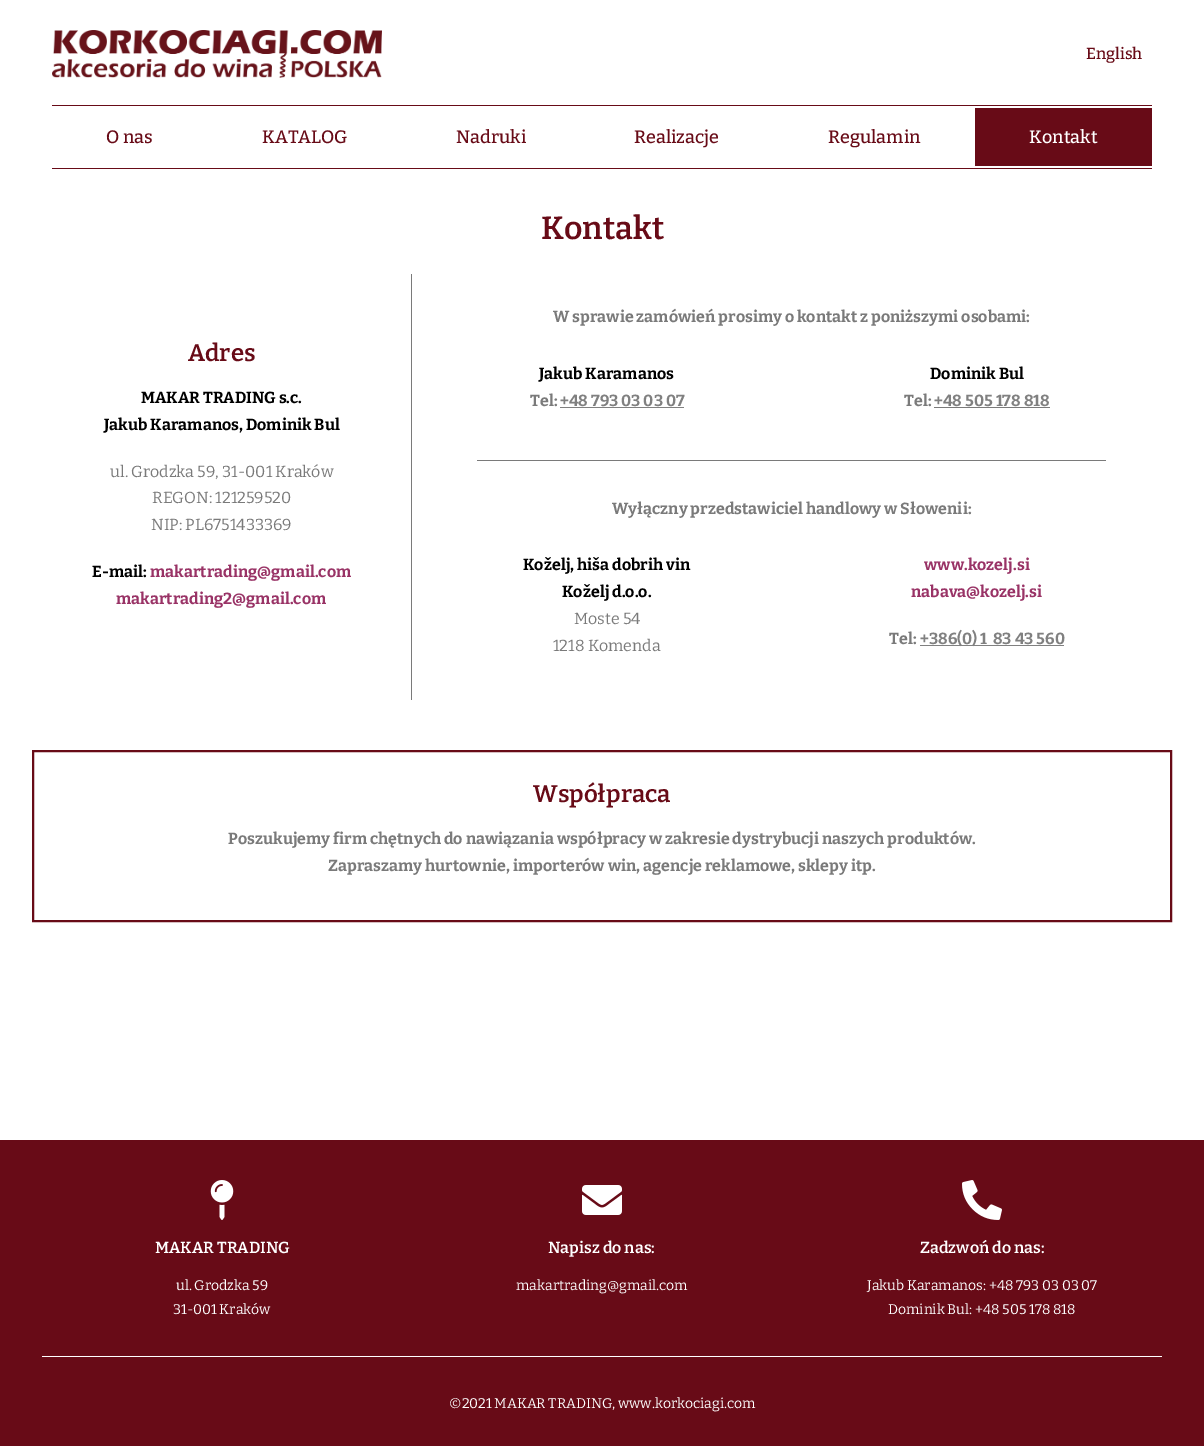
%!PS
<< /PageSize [1204 1446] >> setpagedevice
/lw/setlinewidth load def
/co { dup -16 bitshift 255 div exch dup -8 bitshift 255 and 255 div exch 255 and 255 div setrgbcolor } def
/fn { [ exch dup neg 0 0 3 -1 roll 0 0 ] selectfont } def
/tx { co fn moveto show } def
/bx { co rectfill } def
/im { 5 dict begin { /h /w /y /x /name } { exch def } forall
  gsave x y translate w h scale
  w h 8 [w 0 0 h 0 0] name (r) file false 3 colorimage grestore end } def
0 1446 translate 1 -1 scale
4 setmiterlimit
0 0 1204 1446 16#FFFFFF bx
(media/1.raw) 52 30 330 48 im
52 105 1100 1 16#680B17 bx
975 108 177 58 16#680B17 bx
52 168 1100 1 16#680B17 bx
411 274 1 426 16#7A7A7A bx
560 407 124 1 16#808080 bx
934 407 116 1 16#7A7A7A bx
477 460 629 1 16#7A7A7A bx
920 645 144 1 16#808080 bx
16#680B17 co
2 lw
33 751 1138 170 rectstroke
0 1140 1204 306 16#680B17 bx
(media/2.raw) 210 1180 24 40 im
(media/3.raw) 582 1185 40 30 im
(media/4.raw) 962 1180 40 40 im
42 1356 1120 1 16#FFFFFF bx
(English) 1086 59 /Bitter-Medium 16 16#680B17 tx
(O nas) 106 143 /Bitter-Medium 18 16#680B17 tx
(KATALOG) 262 143 /Bitter-Medium 18 16#680B17 tx
(Nadruki) 456 143 /Bitter-Medium 18 16#680B17 tx
(Realizacje) 634 143 /Bitter-Medium 18 16#680B17 tx
(Regulamin) 828 143 /Bitter-Medium 18 16#680B17 tx
(Kontakt) 1029 143 /Bitter-Medium 18 16#FFFFFF tx
(Kontakt) 541 239 /Bitter-SemiBold 32 16#680B17 tx
(Adres) 188 361 /Bitter-SemiBold 24 16#680B17 tx
(MAKAR TRADING s.c.) 141 403 /Bitter-Bold 16 16#000000 tx
(Jakub Karamanos, Dominik Bul) 104 430 /Bitter-Bold 16 16#000000 tx
(ul. Grodzka 59, 31-001 Kraków) 110 477 /Bitter-Regular 16 16#7A7A7A tx
(REGON: 121259520) 152 503 /Bitter-Regular 16 16#7A7A7A tx
(NIP: PL6751433369) 151 530 /Bitter-Regular 16 16#7A7A7A tx
(E-mail:) 92 577 /Bitter-Bold 16 16#000000 tx
(makartrading@gmail.com) 150 577 /Bitter-Bold 16 16#993366 tx
(makartrading2@gmail.com) 116 604 /Bitter-Bold 16 16#993366 tx
(W sprawie zamówień prosimy o kontakt z poniższymi osobami:) 553 322 /Bitter-Bold 16 16#7A7A7A tx
(Jakub Karamanos) 539 379 /Bitter-Bold 16 16#000000 tx
(Tel:) 530 406 /Bitter-Bold 16 16#7A7A7A tx
(+48 793 03 03 07) 560 406 /Bitter-Bold 16 16#808080 tx
(Dominik Bul) 930 379 /Bitter-Bold 16 16#000000 tx
(Tel:) 904 406 /Bitter-Bold 16 16#7A7A7A tx
(+48 505 178 818) 934 406 /Bitter-Bold 16 16#808080 tx
(Wyłączny przedstawiciel handlowy w Słowenii:) 612 514 /Bitter-Bold 16 16#7A7A7A tx
(Koželj, hiša dobrih vin) 523 570 /Bitter-Bold 16 16#000000 tx
(Koželj d.o.o.) 562 597 /Bitter-Bold 16 16#000000 tx
(Moste 54) 574 624 /Bitter-Regular 16 16#7A7A7A tx
(1218 Komenda) 553 651 /Bitter-Regular 16 16#7A7A7A tx
(www.kozelj.si) 924 570 /Bitter-Bold 16 16#993366 tx
(nabava@kozelj.si) 911 597 /Bitter-Bold 16 16#993366 tx
(Tel:) 889 644 /Bitter-Bold 16 16#7A7A7A tx
(+386\(0\) 1  83 43 560) 920 644 /Bitter-Bold 16 16#808080 tx
(Współpraca) 533 802 /Bitter-SemiBold 24 16#680B17 tx
(Poszukujemy firm chętnych do nawiązania współpracy w zakresie dystrybucji naszych produktów.) 228 844 /Bitter-Bold 16 16#7A7A7A tx
(Zapraszamy hurtownie, importerów win, agencje reklamowe, sklepy itp.) 328 871 /Bitter-Bold 16 16#7A7A7A tx
(MAKAR TRADING) 155 1253 /Bitter-SemiBold 16 16#FFFFFF tx
(ul. Grodzka 59) 176 1290 /Bitter-Regular 14 16#FFFFFF tx
(31-001 Kraków) 173 1314 /Bitter-Regular 14 16#FFFFFF tx
(Napisz do nas:) 548 1253 /Bitter-SemiBold 16 16#FFFFFF tx
(makartrading@gmail.com) 516 1290 /Bitter-Regular 14 16#FFFFFF tx
(Zadzwoń do nas:) 920 1253 /Bitter-SemiBold 16 16#FFFFFF tx
(Jakub Karamanos: +48 793 03 03 07) 867 1290 /Bitter-Regular 14 16#FFFFFF tx
(Dominik Bul: +48 505 178 818) 888 1314 /Bitter-Regular 14 16#FFFFFF tx
(©2021 MAKAR TRADING, www.korkociagi.com) 449 1408 /Bitter-Regular 14 16#FFFFFF tx
showpage
